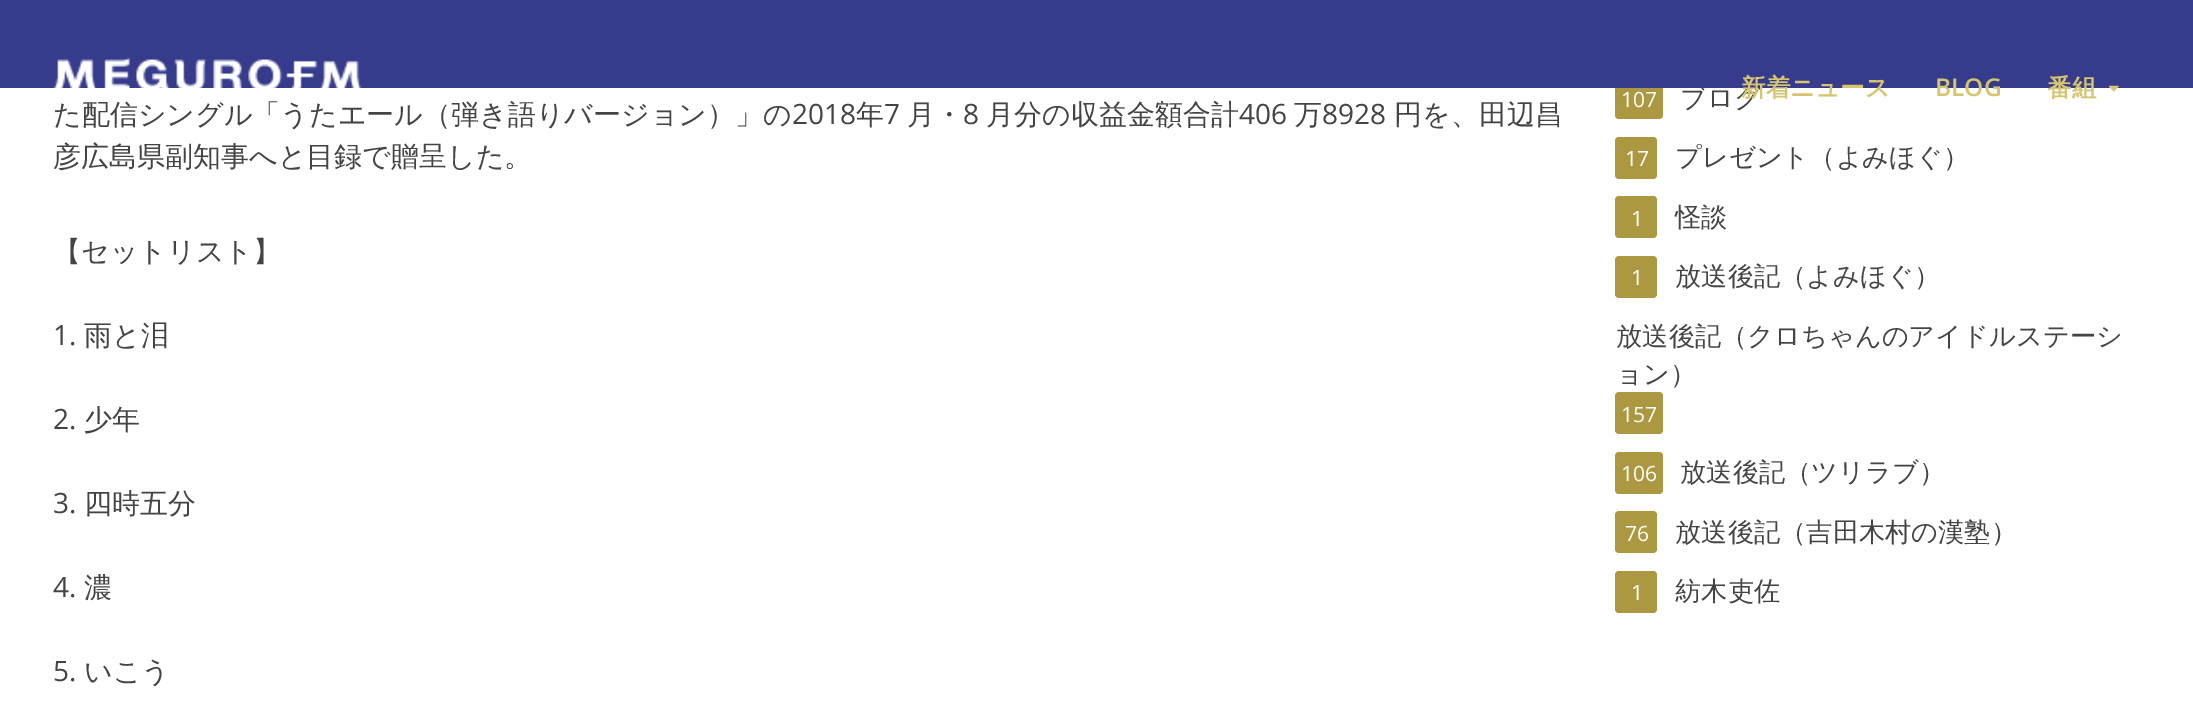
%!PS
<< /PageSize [2193 721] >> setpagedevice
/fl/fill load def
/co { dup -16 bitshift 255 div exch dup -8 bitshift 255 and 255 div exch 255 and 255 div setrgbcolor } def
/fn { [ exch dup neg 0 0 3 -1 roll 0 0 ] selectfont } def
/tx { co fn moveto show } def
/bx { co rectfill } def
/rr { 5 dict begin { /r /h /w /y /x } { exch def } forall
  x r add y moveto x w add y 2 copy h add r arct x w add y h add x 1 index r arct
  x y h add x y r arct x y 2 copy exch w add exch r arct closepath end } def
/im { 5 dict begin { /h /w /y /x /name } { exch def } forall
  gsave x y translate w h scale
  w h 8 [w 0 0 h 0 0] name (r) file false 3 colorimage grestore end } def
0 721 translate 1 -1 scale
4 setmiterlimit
0 0 2193 721 16#FFFFFF bx
16#AC9841 co
1615 77 48 42 4 rr fl
1615 137 42 42 4 rr fl
1615 196 42 42 4 rr fl
1615 256 42 42 4 rr fl
1615 392 48 42 4 rr fl
1615 452 48 42 4 rr fl
1615 511 42 42 4 rr fl
1615 571 42 42 4 rr fl
(た配信シングル「うたエール（弾き語りバージョン）」の) 53 124 /WenQuanYiZenHei-Medium 28 16#444444 tx
(2018) 792 124 /OpenSans-Regular 28 16#444444 tx
(年) 856 124 /WenQuanYiZenHei-Medium 28 16#444444 tx
(7) 884 124 /OpenSans-Regular 28 16#444444 tx
(月・) 907 124 /WenQuanYiZenHei-Medium 28 16#444444 tx
(8) 963 124 /OpenSans-Regular 28 16#444444 tx
(月分の収益金額合計) 986 124 /WenQuanYiZenHei-Medium 28 16#444444 tx
(406) 1239 124 /OpenSans-Regular 28 16#444444 tx
(万) 1294 124 /WenQuanYiZenHei-Medium 28 16#444444 tx
(8928) 1322 124 /OpenSans-Regular 28 16#444444 tx
(円を、田辺昌) 1394 124 /WenQuanYiZenHei-Medium 28 16#444444 tx
(彦広島県副知事へと目録で贈呈した。) 53 166 /WenQuanYiZenHei-Medium 28 16#444444 tx
(【セットリスト】) 53 261 /WenQuanYiZenHei-Medium 28 16#444444 tx
(1.) 53 345 /OpenSans-Regular 28 16#444444 tx
(雨と泪) 84 345 /WenQuanYiZenHei-Medium 28 16#444444 tx
(2.) 53 429 /OpenSans-Regular 28 16#444444 tx
(少年) 84 429 /WenQuanYiZenHei-Medium 28 16#444444 tx
(3.) 53 513 /OpenSans-Regular 28 16#444444 tx
(四時五分) 84 513 /WenQuanYiZenHei-Medium 28 16#444444 tx
(4.) 53 597 /OpenSans-Regular 28 16#444444 tx
(濃) 84 597 /WenQuanYiZenHei-Medium 28 16#444444 tx
(5.) 53 681 /OpenSans-Regular 28 16#444444 tx
(いこう) 84 681 /WenQuanYiZenHei-Medium 28 16#444444 tx
(107) 1621 107 /OpenSans-Regular 21 16#FFFFFF tx
(ブログ) 1680 107 /WenQuanYiZenHei-Medium 26.25 16#444444 tx
0 0 2193 88 16#363B8B bx
(番組) 2047 96 /WenQuanYiZenHei-Bold 24.5 16#D5C56F tx
(media/2.raw) 2108 85 11 7 im
(BLOG) 1935 96 /OpenSans-SemiBold 24.5 16#D5C56F tx
(新着ニュース) 1741 96 /WenQuanYiZenHei-Bold 24.5 16#D5C56F tx
(media/1.raw) 53 57 308 31 im
(17) 1625 166 /OpenSans-Regular 21 16#FFFFFF tx
(プレゼント（よみほぐ）) 1675 166 /WenQuanYiZenHei-Medium 26.25 16#444444 tx
(1) 1631 226 /OpenSans-Regular 21 16#FFFFFF tx
(怪談) 1675 226 /WenQuanYiZenHei-Medium 26.25 16#444444 tx
(1) 1631 285 /OpenSans-Regular 21 16#FFFFFF tx
(放送後記（よみほぐ）) 1675 285 /WenQuanYiZenHei-Medium 26.25 16#444444 tx
(放送後記（クロちゃんのアイドルステーシ) 1616 345 /WenQuanYiZenHei-Medium 26.25 16#444444 tx
(ョン）) 1616 383 /WenQuanYiZenHei-Medium 26.25 16#444444 tx
(157) 1621 422 /OpenSans-Regular 21 16#FFFFFF tx
(106) 1621 481 /OpenSans-Regular 21 16#FFFFFF tx
(放送後記（ツリラブ）) 1680 481 /WenQuanYiZenHei-Medium 26.25 16#444444 tx
(76) 1625 541 /OpenSans-Regular 21 16#FFFFFF tx
(放送後記（吉田木村の漢塾）) 1675 541 /WenQuanYiZenHei-Medium 26.25 16#444444 tx
(1) 1631 600 /OpenSans-Regular 21 16#FFFFFF tx
(紡木吏佐) 1675 600 /WenQuanYiZenHei-Medium 26.25 16#444444 tx
showpage
